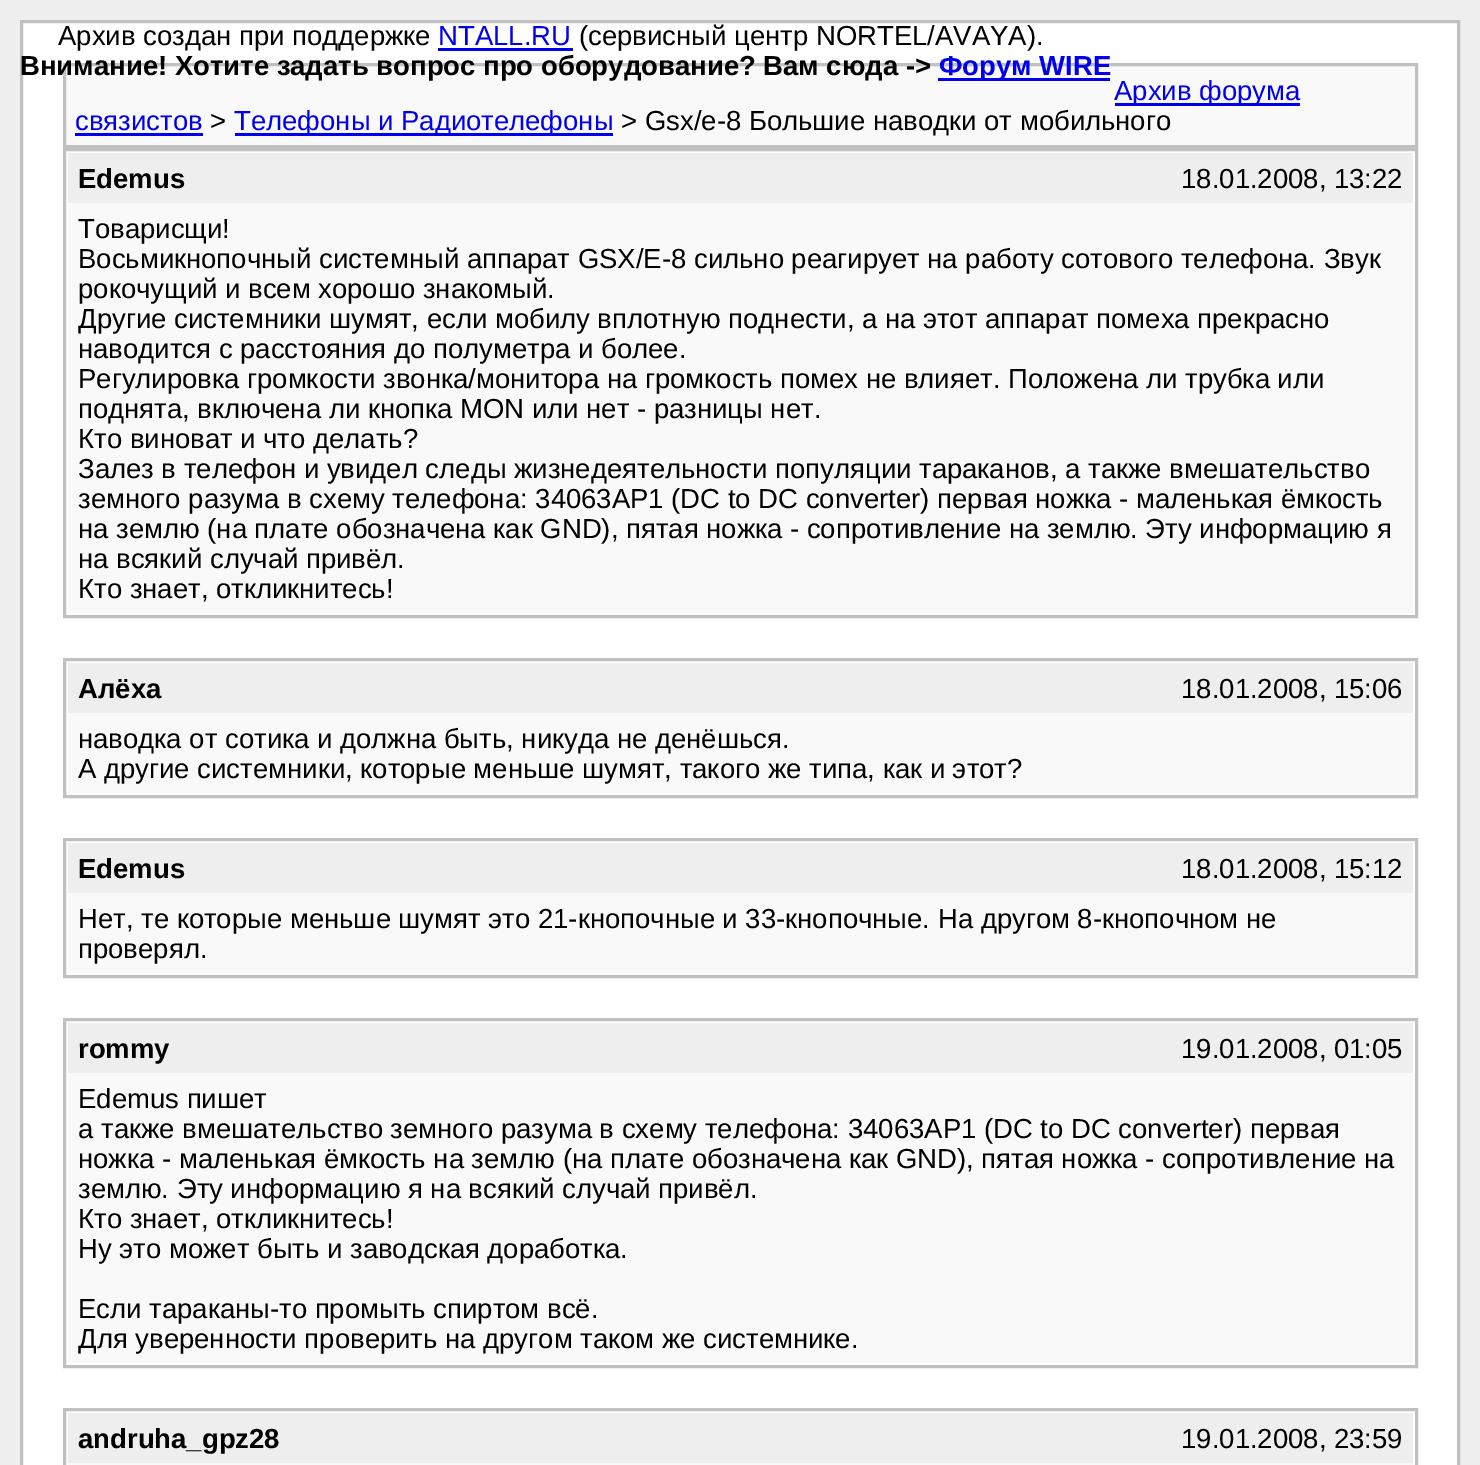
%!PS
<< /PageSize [1480 1465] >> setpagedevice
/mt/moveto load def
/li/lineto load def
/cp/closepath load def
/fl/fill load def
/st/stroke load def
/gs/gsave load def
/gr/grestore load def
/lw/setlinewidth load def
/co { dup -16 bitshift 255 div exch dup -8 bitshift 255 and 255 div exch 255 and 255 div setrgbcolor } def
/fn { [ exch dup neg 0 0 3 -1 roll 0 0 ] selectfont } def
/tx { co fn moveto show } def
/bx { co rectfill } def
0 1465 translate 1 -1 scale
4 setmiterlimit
0 0 1480 1465 16#EEEEEE bx
16#FFFFFF co
21.5 21.5 mt 1458.5 21.5 li 1458.5 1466.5 li 21.5 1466.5 li cp gs fl gr
16#C0C0C0 co
3 lw
st
438 48 135 3 16#0000EE bx
16#F9F9F9 co
64.5 64.5 mt 1416.5 64.5 li 1416.5 146.5 li 64.5 146.5 li cp gs fl gr
16#C0C0C0 co
st
938 78 172 3 16#0000EE bx
1115 103 185 3 16#0000EE bx
75 133 128 3 16#0000EE bx
235 133 378 3 16#0000EE bx
16#C0C0C0 co
64.5 149.5 1352 467 rectstroke
68 153 1345 50 16#EEEEEE bx
68 203 1345 410 16#F9F9F9 bx
16#C0C0C0 co
64.5 659.5 1352 137 rectstroke
68 663 1345 50 16#EEEEEE bx
68 713 1345 80 16#F9F9F9 bx
16#C0C0C0 co
64.5 839.5 1352 137 rectstroke
68 843 1345 50 16#EEEEEE bx
68 893 1345 80 16#F9F9F9 bx
16#C0C0C0 co
64.5 1019.5 1352 347 rectstroke
68 1023 1345 50 16#EEEEEE bx
68 1073 1345 290 16#F9F9F9 bx
16#C0C0C0 co
64.5 1409.5 1352 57 rectstroke
68 1413 1345 50 16#EEEEEE bx
68 1463 1345 2 16#F9F9F9 bx
(Архив создан при поддержке) 58 45 /LiberationSans-Regular 27.5 16#000000 tx
(NTALL.RU) 438 45 /LiberationSans-Regular 27.5 16#0000EE tx
(\(сервисный центр NORTEL/AVAYA\).) 579 45 /LiberationSans-Regular 27.5 16#000000 tx
(Внимание! Хотите задать вопрос про оборудование? Вам сюда ->) 20 75 /LiberationSans-Bold 27.5 16#000000 tx
(Форум WIRE) 939 75 /LiberationSans-Bold 27.5 16#0000EE tx
(Архив форума) 1114 100 /LiberationSans-Regular 27.5 16#0000EE tx
(связистов) 75 130 /LiberationSans-Regular 27.5 16#0000EE tx
(>) 210 130 /LiberationSans-Regular 27.5 16#000000 tx
(Телефоны и Радиотелефоны) 234 130 /LiberationSans-Regular 27.5 16#0000EE tx
(> Gsx/e-8 Большие наводки от мобильного) 621 130 /LiberationSans-Regular 27.5 16#000000 tx
(Edemus) 78 188 /LiberationSans-Bold 27.5 16#000000 tx
(18.01.2008, 13:22) 1181 188 /LiberationSans-Regular 27.5 16#000000 tx
(Товарисщи!) 78 238 /LiberationSans-Regular 27.5 16#000000 tx
(Восьмикнопочный системный аппарат GSX/E-8 сильно реагирует на работу сотового телефона. Звук) 78 268 /LiberationSans-Regular 27.5 16#000000 tx
(рокочущий и всем хорошо знакомый.) 78 298 /LiberationSans-Regular 27.5 16#000000 tx
(Другие системники шумят, если мобилу вплотную поднести, а на этот аппарат помеха прекрасно) 78 328 /LiberationSans-Regular 27.5 16#000000 tx
(наводится с расстояния до полуметра и более.) 78 358 /LiberationSans-Regular 27.5 16#000000 tx
(Регулировка громкости звонка/монитора на громкость помех не влияет. Положена ли трубка или) 78 388 /LiberationSans-Regular 27.5 16#000000 tx
(поднята, включена ли кнопка MON или нет - разницы нет.) 78 418 /LiberationSans-Regular 27.5 16#000000 tx
(Кто виноват и что делать?) 78 448 /LiberationSans-Regular 27.5 16#000000 tx
(Залез в телефон и увидел следы жизнедеятельности популяции тараканов, а также вмешательство) 78 478 /LiberationSans-Regular 27.5 16#000000 tx
(земного разума в схему телефона: 34063AP1 \(DC to DC converter\) первая ножка - маленькая ёмкость) 78 508 /LiberationSans-Regular 27.5 16#000000 tx
(на землю \(на плате обозначена как GND\), пятая ножка - сопротивление на землю. Эту информацию я) 78 538 /LiberationSans-Regular 27.5 16#000000 tx
(на всякий случай привёл.) 78 568 /LiberationSans-Regular 27.5 16#000000 tx
(Кто знает, откликнитесь!) 78 598 /LiberationSans-Regular 27.5 16#000000 tx
(Алёха) 78 698 /LiberationSans-Bold 27.5 16#000000 tx
(18.01.2008, 15:06) 1181 698 /LiberationSans-Regular 27.5 16#000000 tx
(наводка от сотика и должна быть, никуда не денёшься.) 78 748 /LiberationSans-Regular 27.5 16#000000 tx
(А другие системники, которые меньше шумят, такого же типа, как и этот?) 78 778 /LiberationSans-Regular 27.5 16#000000 tx
(Edemus) 78 878 /LiberationSans-Bold 27.5 16#000000 tx
(18.01.2008, 15:12) 1181 878 /LiberationSans-Regular 27.5 16#000000 tx
(Нет, те которые меньше шумят это 21-кнопочные и 33-кнопочные. На другом 8-кнопочном не) 78 928 /LiberationSans-Regular 27.5 16#000000 tx
(проверял.) 78 958 /LiberationSans-Regular 27.5 16#000000 tx
(rommy) 78 1058 /LiberationSans-Bold 27.5 16#000000 tx
(19.01.2008, 01:05) 1181 1058 /LiberationSans-Regular 27.5 16#000000 tx
(Edemus пишет) 78 1108 /LiberationSans-Regular 27.5 16#000000 tx
(а также вмешательство земного разума в схему телефона: 34063AP1 \(DC to DC converter\) первая) 78 1138 /LiberationSans-Regular 27.5 16#000000 tx
(ножка - маленькая ёмкость на землю \(на плате обозначена как GND\), пятая ножка - сопротивление на) 78 1168 /LiberationSans-Regular 27.5 16#000000 tx
(землю. Эту информацию я на всякий случай привёл.) 78 1198 /LiberationSans-Regular 27.5 16#000000 tx
(Кто знает, откликнитесь!) 78 1228 /LiberationSans-Regular 27.5 16#000000 tx
(Ну это может быть и заводская доработка.) 78 1258 /LiberationSans-Regular 27.5 16#000000 tx
(Если тараканы-то промыть спиртом всё.) 78 1318 /LiberationSans-Regular 27.5 16#000000 tx
(Для уверенности проверить на другом таком же системнике.) 78 1348 /LiberationSans-Regular 27.5 16#000000 tx
(andruha_gpz28) 78 1448 /LiberationSans-Bold 27.5 16#000000 tx
(19.01.2008, 23:59) 1181 1448 /LiberationSans-Regular 27.5 16#000000 tx
showpage
